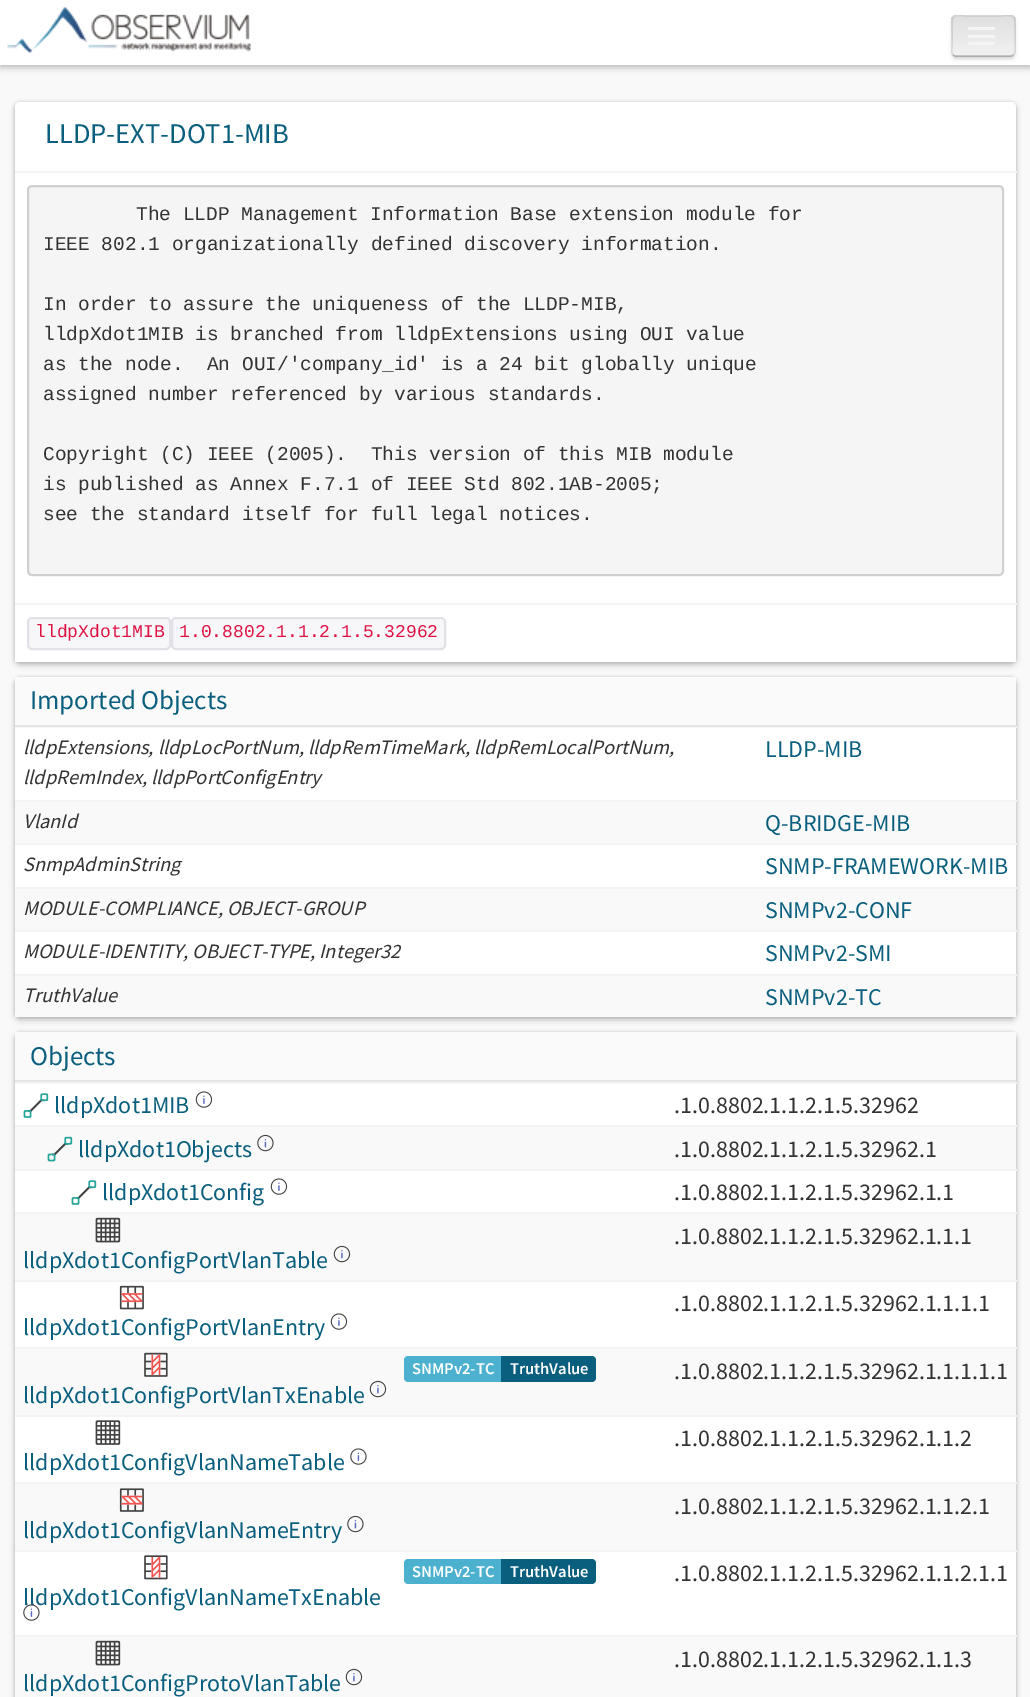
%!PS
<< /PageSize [1030 1697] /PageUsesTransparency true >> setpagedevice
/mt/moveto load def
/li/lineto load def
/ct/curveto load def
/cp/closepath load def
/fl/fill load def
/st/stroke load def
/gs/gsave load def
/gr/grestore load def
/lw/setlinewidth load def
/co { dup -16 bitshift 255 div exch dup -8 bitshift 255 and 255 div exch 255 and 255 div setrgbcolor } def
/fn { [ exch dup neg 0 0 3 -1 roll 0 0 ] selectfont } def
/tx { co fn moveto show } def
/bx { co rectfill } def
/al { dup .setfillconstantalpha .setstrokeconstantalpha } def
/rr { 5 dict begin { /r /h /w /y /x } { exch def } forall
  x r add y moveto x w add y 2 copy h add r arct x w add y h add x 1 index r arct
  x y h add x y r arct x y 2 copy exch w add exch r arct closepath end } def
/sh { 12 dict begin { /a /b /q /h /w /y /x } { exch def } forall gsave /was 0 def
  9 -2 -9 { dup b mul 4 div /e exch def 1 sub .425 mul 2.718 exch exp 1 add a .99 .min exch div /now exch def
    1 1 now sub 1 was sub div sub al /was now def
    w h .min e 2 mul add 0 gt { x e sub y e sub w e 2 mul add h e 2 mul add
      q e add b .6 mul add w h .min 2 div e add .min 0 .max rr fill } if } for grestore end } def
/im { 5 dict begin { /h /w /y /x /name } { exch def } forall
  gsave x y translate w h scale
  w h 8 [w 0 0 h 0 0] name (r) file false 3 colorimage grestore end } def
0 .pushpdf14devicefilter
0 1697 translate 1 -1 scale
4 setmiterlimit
0 0 1030 1697 16#F9F9F9 bx
0 0 1030 65 16#FFFFFF bx
gs
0 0 mt 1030 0 li 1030 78 li 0 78 li cp 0 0 mt 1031 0 li 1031 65 li 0 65 li cp eoclip newpath
16#000000 co
0 3 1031 65 0 3 .24 sh
gr
(media/1.raw) 7 7 244 46 im
16#999999 co
951 17 65 42 5 4 .12 sh
954 23 59 36 1.5 1 .2 sh
951 18 65 42 5 1.5 .14 sh
16#E7E7E7 co
951 15 65 42 5 rr fl
gs
951 15 65 42 5 rr clip newpath
gs 951 17 mt 1016 17 li 1016 56 li 951 56 li cp clip newpath
<< /ShadingType 2 /ColorSpace /DeviceRGB /Coords [983 16 983 56] /Extend [true true] /Function << /FunctionType 2 /Domain [0 1] /C0 [.875 .875 .875] /C1 [.949 .949 .949] /N 1 >> >> shfill gr
gr
0.25 al
16#000000 co
1.5 lw
1013.5 55 mt 1011.5 56 li 955 56 li 953 55 li st
0.1 al
953 55 mt 951 53 952 49 952 47 ct 952 25 li 952 13.5 953 16 965 16 ct 1002 16 li 1013.5 16 1015 13.5 1015 25 ct 1015 47 li 1015 49 1015.5 53 1013.5 55 ct st
1 al
16#F5F5F5 co
968 27 27 3 1.5 rr fl
968 35 27 3 1.5 rr fl
968 42 27 3 1.5 rr fl
16#000000 co
15 105 1001 560 5 3 .24 sh
15 102 1001 560 5 1.5 .12 sh
16#FFFFFF co
15 102 1001 560 5 rr fl
15 657 1001 5 16#FFFFFF bx
15 171 1002 2 16#F4F4F4 bx
16#F5F5F5 co
27 185 977 391 5 rr fl
0.15 al
16#000000 co
2 lw
28 186 975 389 4 rr st
1 al
15 603 1002 2 16#F4F4F4 bx
16#F7F7F9 co
28 618 142 31 4 rr gs fl gr
16#E1E1E8 co
st
16#F7F7F9 co
172 618 273 31 4 rr gs fl gr
16#E1E1E8 co
st
16#000000 co
15 680 1001 340 5 3 .24 sh
15 677 1001 340 5 1.5 .12 sh
15 677 1001 48 16#FAFAFA bx
756 726 261 2 16#F4F4F4 bx
15 725 1001 2 16#E5E5E5 bx
15 728 1001 246 16#FFFFFF bx
15 727 743 1 16#F4F4F4 bx
15 802 1001 41 16#F9F9F9 bx
15 800 1002 2 16#F4F4F4 bx
15 843 1002 2 16#F4F4F4 bx
15 889 1001 41 16#F9F9F9 bx
15 887 1002 2 16#F4F4F4 bx
15 930 1002 2 16#F4F4F4 bx
15 976 1001 41 16#F9F9F9 bx
15 974 1002 2 16#F4F4F4 bx
16#000000 co
15 1035 1001 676 5 3 .24 sh
15 1032 1001 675 5 1.5 .12 sh
15 1084 1001 551 16#FFFFFF bx
15 1032 1001 48 16#FAFAFA bx
15 1080 1001 2 16#E5E5E5 bx
(media/2.raw) 23 1093 26 25 im
(media/3.raw) 195 1091 18 17 im
15 1082 1002 2 16#F4F4F4 bx
15 1127 1001 42 16#F9F9F9 bx
(media/4.raw) 47 1136 26 26 im
(media/5.raw) 257 1134 17 18 im
15 1125 1002 2 16#F4F4F4 bx
(media/2.raw) 71 1180 26 25 im
(media/3.raw) 270 1178 18 17 im
15 1169 1002 2 16#F4F4F4 bx
15 1212 1002 2 16#F4F4F4 bx
15 1214 1001 66 16#F9F9F9 bx
(media/6.raw) 95 1217 26 26 im
(media/7.raw) 333 1245 18 18 im
15 1280 1002 2 16#F4F4F4 bx
(media/8.raw) 119 1285 25 25 im
(media/3.raw) 330 1313 18 17 im
15 1349 1001 66 16#F9F9F9 bx
16#4BB1CF co
408 1356 mt 501 1356 li 501 1382 li 408 1382 li 406 1382 404 1380 404 1378 ct 404 1360 li 404 1358 406 1356 408 1356 ct cp fl
16#0A5F7F co
501 1356 mt 592 1356 li 594 1356 596 1358 596 1360 ct 596 1378 li 596 1380 594 1382 592 1382 ct 501 1382 li cp fl
15 1347 1002 2 16#F4F4F4 bx
(media/9.raw) 144 1352 24 25 im
(media/7.raw) 369 1380 18 18 im
15 1415 1002 2 16#F4F4F4 bx
(media/10.raw) 95 1420 26 25 im
(media/11.raw) 350 1448 17 17 im
15 1482 1002 2 16#F4F4F4 bx
15 1484 1001 66 16#F9F9F9 bx
(media/12.raw) 119 1488 25 24 im
(media/5.raw) 347 1515 17 18 im
16#4BB1CF co
408 1559 mt 501 1559 li 501 1584 li 408 1584 li 406 1584 404 1582 404 1580 ct 404 1563 li 404 1561 406 1559 408 1559 ct cp fl
16#0A5F7F co
501 1559 mt 592 1559 li 594 1559 596 1561 596 1563 ct 596 1580 li 596 1582 594 1584 592 1584 ct 501 1584 li cp fl
15 1550 1002 2 16#F4F4F4 bx
(media/13.raw) 144 1555 24 25 im
15 1635 1002 2 16#F4F4F4 bx
15 1637 1001 60 16#F9F9F9 bx
(media/6.raw) 95 1640 26 26 im
(media/7.raw) 345 1668 18 18 im
(LLDP-EXT-DOT1-MIB) 45 143 /SourceSansPro-Regular 28.5 16#0A5F7F tx
(The LLDP Management Information Base extension module for) 136 220 /LiberationMono-Regular 19.5 16#333333 tx
(IEEE 802.1 organizationally defined discovery information.) 43 250 /LiberationMono-Regular 19.5 16#333333 tx
(In order to assure the uniqueness of the LLDP-MIB,) 43 310 /LiberationMono-Regular 19.5 16#333333 tx
(lldpXdot1MIB is branched from lldpExtensions using OUI value) 43 340 /LiberationMono-Regular 19.5 16#333333 tx
(as the node.  An OUI/'company_id' is a 24 bit globally unique) 43 370 /LiberationMono-Regular 19.5 16#333333 tx
(assigned number referenced by various standards.) 43 400 /LiberationMono-Regular 19.5 16#333333 tx
(Copyright \(C\) IEEE \(2005\).  This version of this MIB module) 43 460 /LiberationMono-Regular 19.5 16#333333 tx
(is published as Annex F.7.1 of IEEE Std 802.1AB-2005;) 43 490 /LiberationMono-Regular 19.5 16#333333 tx
(see the standard itself for full legal notices.) 43 520 /LiberationMono-Regular 19.5 16#333333 tx
(lldpXdot1MIB) 35 637 /LiberationMono-Regular 18 16#DD1144 tx
(1.0.8802.1.1.2.1.5.32962) 179 637 /LiberationMono-Regular 18 16#DD1144 tx
(Imported Objects) 30 709 /SourceSansPro-Regular 27 16#0A5F7F tx
(lldpExtensions, lldpLocPortNum, lldpRemTimeMark, lldpRemLocalPortNum,) 23 754 /SourceSansPro-Italic 20.4 16#333333 tx
(lldpRemIndex, lldpPortConfigEntry) 23 784 /SourceSansPro-Italic 20.4 16#333333 tx
(LLDP-MIB) 765 757 /SourceSansPro-Regular 24 16#0A5F7F tx
(VlanId) 23 828 /SourceSansPro-Italic 20.4 16#333333 tx
(Q-BRIDGE-MIB) 765 831 /SourceSansPro-Regular 24 16#0A5F7F tx
(SnmpAdminString) 23 871 /SourceSansPro-Italic 20.4 16#333333 tx
(SNMP-FRAMEWORK-MIB) 765 874 /SourceSansPro-Regular 24 16#0A5F7F tx
(MODULE-COMPLIANCE, OBJECT-GROUP) 23 915 /SourceSansPro-Italic 20.4 16#333333 tx
(SNMPv2-CONF) 765 918 /SourceSansPro-Regular 24 16#0A5F7F tx
(MODULE-IDENTITY, OBJECT-TYPE, Integer32) 23 958 /SourceSansPro-Italic 20.4 16#333333 tx
(SNMPv2-SMI) 765 961 /SourceSansPro-Regular 24 16#0A5F7F tx
(TruthValue) 23 1002 /SourceSansPro-Italic 20.4 16#333333 tx
(SNMPv2-TC) 765 1005 /SourceSansPro-Regular 24 16#0A5F7F tx
(Objects) 30 1065 /SourceSansPro-Regular 27 16#0A5F7F tx
(lldpXdot1MIB) 54 1113 /SourceSansPro-Regular 24 16#0A5F7F tx
(.1.0.8802.1.1.2.1.5.32962) 674 1113 /SourceSansPro-Regular 24 16#333333 tx
(lldpXdot1Objects) 78 1157 /SourceSansPro-Regular 24 16#0A5F7F tx
(.1.0.8802.1.1.2.1.5.32962.1) 674 1157 /SourceSansPro-Regular 24 16#333333 tx
(lldpXdot1Config) 102 1200 /SourceSansPro-Regular 24 16#0A5F7F tx
(.1.0.8802.1.1.2.1.5.32962.1.1) 674 1200 /SourceSansPro-Regular 24 16#333333 tx
(.1.0.8802.1.1.2.1.5.32962.1.1.1) 674 1244 /SourceSansPro-Regular 24 16#333333 tx
(lldpXdot1ConfigPortVlanTable) 23 1268 /SourceSansPro-Regular 24 16#0A5F7F tx
(.1.0.8802.1.1.2.1.5.32962.1.1.1.1) 674 1311 /SourceSansPro-Regular 24 16#333333 tx
(lldpXdot1ConfigPortVlanEntry) 23 1335 /SourceSansPro-Regular 24 16#0A5F7F tx
(SNMPv2-TC) 412 1374 /SourceSansPro-SemiBold 16.5 16#FFFFFF tx
(TruthValue) 510 1374 /SourceSansPro-SemiBold 16.5 16#FFFFFF tx
(.1.0.8802.1.1.2.1.5.32962.1.1.1.1.1) 674 1379 /SourceSansPro-Regular 24 16#333333 tx
(lldpXdot1ConfigPortVlanTxEnable) 23 1403 /SourceSansPro-Regular 24 16#0A5F7F tx
(.1.0.8802.1.1.2.1.5.32962.1.1.2) 674 1446 /SourceSansPro-Regular 24 16#333333 tx
(lldpXdot1ConfigVlanNameTable) 23 1470 /SourceSansPro-Regular 24 16#0A5F7F tx
(.1.0.8802.1.1.2.1.5.32962.1.1.2.1) 674 1514 /SourceSansPro-Regular 24 16#333333 tx
(lldpXdot1ConfigVlanNameEntry) 23 1538 /SourceSansPro-Regular 24 16#0A5F7F tx
(SNMPv2-TC) 412 1577 /SourceSansPro-SemiBold 16.5 16#FFFFFF tx
(TruthValue) 510 1577 /SourceSansPro-SemiBold 16.5 16#FFFFFF tx
(.1.0.8802.1.1.2.1.5.32962.1.1.2.1.1) 674 1581 /SourceSansPro-Regular 24 16#333333 tx
(lldpXdot1ConfigVlanNameTxEnable) 23 1605 /SourceSansPro-Regular 24 16#0A5F7F tx
(media/14.raw) 23 1604 17 17 im
(.1.0.8802.1.1.2.1.5.32962.1.1.3) 674 1667 /SourceSansPro-Regular 24 16#333333 tx
(lldpXdot1ConfigProtoVlanTable) 23 1691 /SourceSansPro-Regular 24 16#0A5F7F tx
.poppdf14devicefilter showpage
